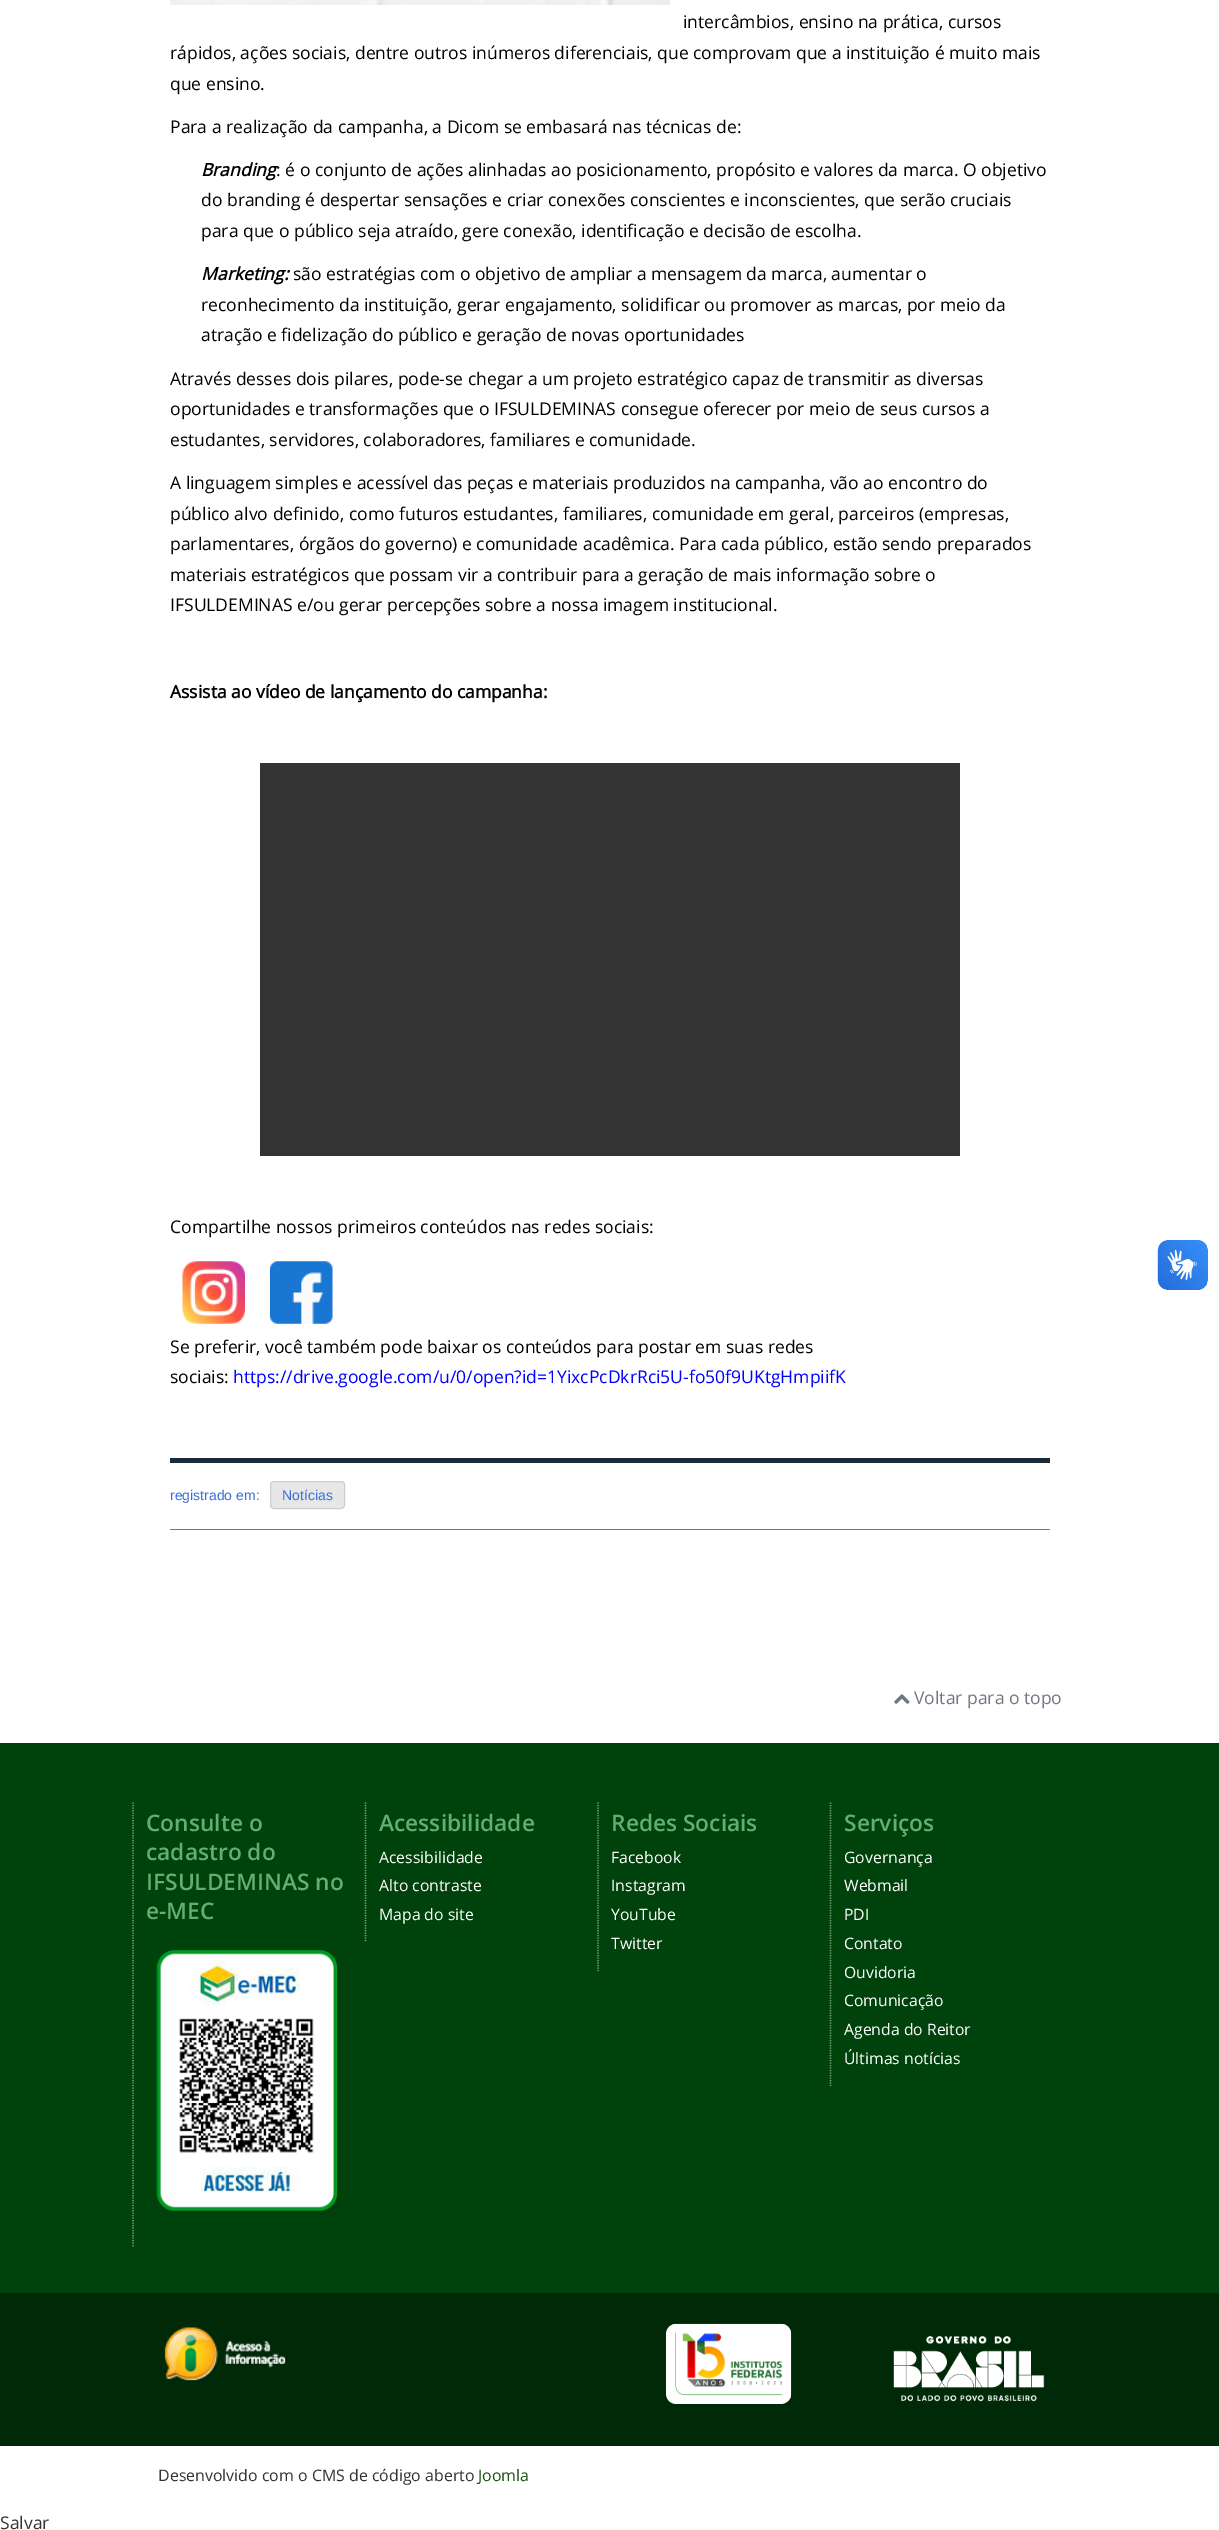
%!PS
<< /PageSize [1219 2530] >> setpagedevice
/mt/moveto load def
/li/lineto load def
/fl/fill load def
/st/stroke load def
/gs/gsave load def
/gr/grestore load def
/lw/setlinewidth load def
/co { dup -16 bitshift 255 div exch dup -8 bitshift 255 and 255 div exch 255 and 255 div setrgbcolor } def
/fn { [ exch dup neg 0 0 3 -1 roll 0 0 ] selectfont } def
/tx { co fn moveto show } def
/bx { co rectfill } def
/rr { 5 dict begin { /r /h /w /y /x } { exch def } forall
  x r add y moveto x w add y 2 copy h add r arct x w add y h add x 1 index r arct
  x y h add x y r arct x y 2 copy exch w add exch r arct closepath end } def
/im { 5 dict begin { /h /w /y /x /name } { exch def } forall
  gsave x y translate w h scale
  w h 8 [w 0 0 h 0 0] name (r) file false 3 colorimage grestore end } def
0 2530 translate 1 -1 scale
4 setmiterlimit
0 0 1219 2530 16#FFFFFF bx
(media/1.raw) 170 0 500 5 im
260 763 700 393 16#333333 bx
(media/2.raw) 182 1261 63 63 im
(media/3.raw) 270 1261 63 63 im
170 1458 880 5 16#1A2A39 bx
170 1529 880 1 16#717782 bx
16#E8E7E7 co
270.5 1481.5 74 27 3.5 rr gs fl gr
16#CFCDCD co
st
0 1743 1219 550 16#00420C bx
(media/4.raw) 894 1694 16 10 im
16#80A887 co
1.2 lw
[1.25 1.25] 0 setdash
133 1802.5 mt 133 2247.5 li st
(media/5.raw) 156 1949 184 265 im
365.5 1802.5 mt 365.5 1942.5 li st
598 1802.5 mt 598 1971 li st
830.5 1802.5 mt 830.5 2086 li st
0 2293 1219 153 16#002907 bx
16#FFFFFF co
666 2324 125 80 10 rr fl
(media/6.raw) 666 2323 126 81 im
(media/7.raw) 164 2327 122 54 im
(media/8.raw) 893 2336 152 66 im
(media/9.raw) 1157 1240 51 50 im
(media/10.raw) 1158 1240 50 50 im
(intercâmbios, ensino na prática, cursos) 683 28 /OpenSans-Regular 17.5 16#000000 tx
(rápidos, ações sociais, dentre outros inúmeros diferenciais, que comprovam que a instituição é muito mais) 170 59 /OpenSans-Regular 17.5 16#000000 tx
(que ensino.) 170 90 /OpenSans-Regular 17.5 16#000000 tx
(Para a realização da campanha, a Dicom se embasará nas técnicas de:) 170 133 /OpenSans-Regular 17.5 16#000000 tx
(Branding) 201 176 /OpenSans-BoldItalic 17.5 16#000000 tx
(: é o conjunto de ações alinhadas ao posicionamento, propósito e valores da marca. O objetivo) 276 176 /OpenSans-Regular 17.5 16#000000 tx
(do branding é despertar sensações e criar conexões conscientes e inconscientes, que serão cruciais) 201 206 /OpenSans-Regular 17.5 16#000000 tx
(para que o público seja atraído, gere conexão, identificação e decisão de escolha.) 201 237 /OpenSans-Regular 17.5 16#000000 tx
(Marketing:) 201 280 /OpenSans-BoldItalic 17.5 16#000000 tx
(são estratégias com o objetivo de ampliar a mensagem da marca, aumentar o) 293 280 /OpenSans-Regular 17.5 16#000000 tx
(reconhecimento da instituição, gerar engajamento, solidificar ou promover as marcas, por meio da) 201 311 /OpenSans-Regular 17.5 16#000000 tx
(atração e fidelização do público e geração de novas oportunidades) 201 341 /OpenSans-Regular 17.5 16#000000 tx
(Através desses dois pilares, pode-se chegar a um projeto estratégico capaz de transmitir as diversas) 170 385 /OpenSans-Regular 17.5 16#000000 tx
(oportunidades e transformações que o IFSULDEMINAS consegue oferecer por meio de seus cursos a) 170 415 /OpenSans-Regular 17.5 16#000000 tx
(estudantes, servidores, colaboradores, familiares e comunidade.) 170 446 /OpenSans-Regular 17.5 16#000000 tx
(A linguagem simples e acessível das peças e materiais produzidos na campanha, vão ao encontro do) 170 489 /OpenSans-Regular 17.5 16#000000 tx
(público alvo definido, como futuros estudantes, familiares, comunidade em geral, parceiros \(empresas,) 170 520 /OpenSans-Regular 17.5 16#000000 tx
(parlamentares, órgãos do governo\) e comunidade acadêmica. Para cada público, estão sendo preparados) 170 550 /OpenSans-Regular 17.5 16#000000 tx
(materiais estratégicos que possam vir a contribuir para a geração de mais informação sobre o) 170 581 /OpenSans-Regular 17.5 16#000000 tx
(IFSULDEMINAS e/ou gerar percepções sobre a nossa imagem institucional.) 170 611 /OpenSans-Regular 17.5 16#000000 tx
(Assista ao vídeo de lançamento do campanha:) 170 698 /OpenSans-Bold 17.5 16#000000 tx
(Compartilhe nossos primeiros conteúdos nas redes sociais:) 170 1233 /OpenSans-Regular 17.5 16#000000 tx
(Se preferir, você também pode baixar os conteúdos para postar em suas redes) 170 1353 /OpenSans-Regular 17.5 16#000000 tx
(sociais:) 170 1383 /OpenSans-Regular 17.5 16#000000 tx
(https://drive.google.com/u/0/open?id=1YixcPcDkrRci5U-fo50f9UKtgHmpiifK) 233 1383 /OpenSans-Regular 17.5 16#0000FF tx
(registrado em:) 170 1500 /LiberationSans-Regular 14 16#3A70D1 tx
(Notícias) 282 1500 /LiberationSans-Regular 14 16#3A70D1 tx
(Voltar para o topo) 914 1704 /OpenSans-Regular 17.5 16#717782 tx
(Consulte o) 146 1831 /OpenSans-SemiBold 22.75 16#61B06F tx
(cadastro do) 146 1860 /OpenSans-SemiBold 22.75 16#61B06F tx
(IFSULDEMINAS no) 146 1890 /OpenSans-SemiBold 22.75 16#61B06F tx
(e-MEC) 146 1919 /OpenSans-SemiBold 22.75 16#61B06F tx
(Acessibilidade) 379 1831 /OpenSans-SemiBold 22.75 16#61B06F tx
(Acessibilidade) 379 1863 /OpenSans-Regular 15.75 16#FFFFFF tx
(Alto contraste) 379 1891 /OpenSans-Regular 15.75 16#FFFFFF tx
(Mapa do site) 379 1920 /OpenSans-Regular 15.75 16#FFFFFF tx
(Redes Sociais) 611 1831 /OpenSans-SemiBold 22.75 16#61B06F tx
(Facebook) 611 1863 /OpenSans-Regular 15.75 16#FFFFFF tx
(Instagram) 611 1891 /OpenSans-Regular 15.75 16#FFFFFF tx
(YouTube) 611 1920 /OpenSans-Regular 15.75 16#FFFFFF tx
(Twitter) 611 1949 /OpenSans-Regular 15.75 16#FFFFFF tx
(Serviços) 844 1831 /OpenSans-SemiBold 22.75 16#61B06F tx
(Governança) 844 1863 /OpenSans-Regular 15.75 16#FFFFFF tx
(Webmail) 844 1891 /OpenSans-Regular 15.75 16#FFFFFF tx
(PDI) 844 1920 /OpenSans-Regular 15.75 16#FFFFFF tx
(Contato) 844 1949 /OpenSans-Regular 15.75 16#FFFFFF tx
(Ouvidoria) 844 1978 /OpenSans-Regular 15.75 16#FFFFFF tx
(Comunicação) 844 2006 /OpenSans-Regular 15.75 16#FFFFFF tx
(Agenda do Reitor) 844 2035 /OpenSans-Regular 15.75 16#FFFFFF tx
(Últimas notícias) 844 2064 /OpenSans-Regular 15.75 16#FFFFFF tx
(Desenvolvido com o CMS de código aberto) 158 2481 /OpenSans-Regular 15.9 16#333333 tx
(Joomla) 478 2481 /OpenSans-Regular 15.9 16#175210 tx
(Salvar) 0 2529 /OpenSans-Regular 17.5 16#333333 tx
showpage
